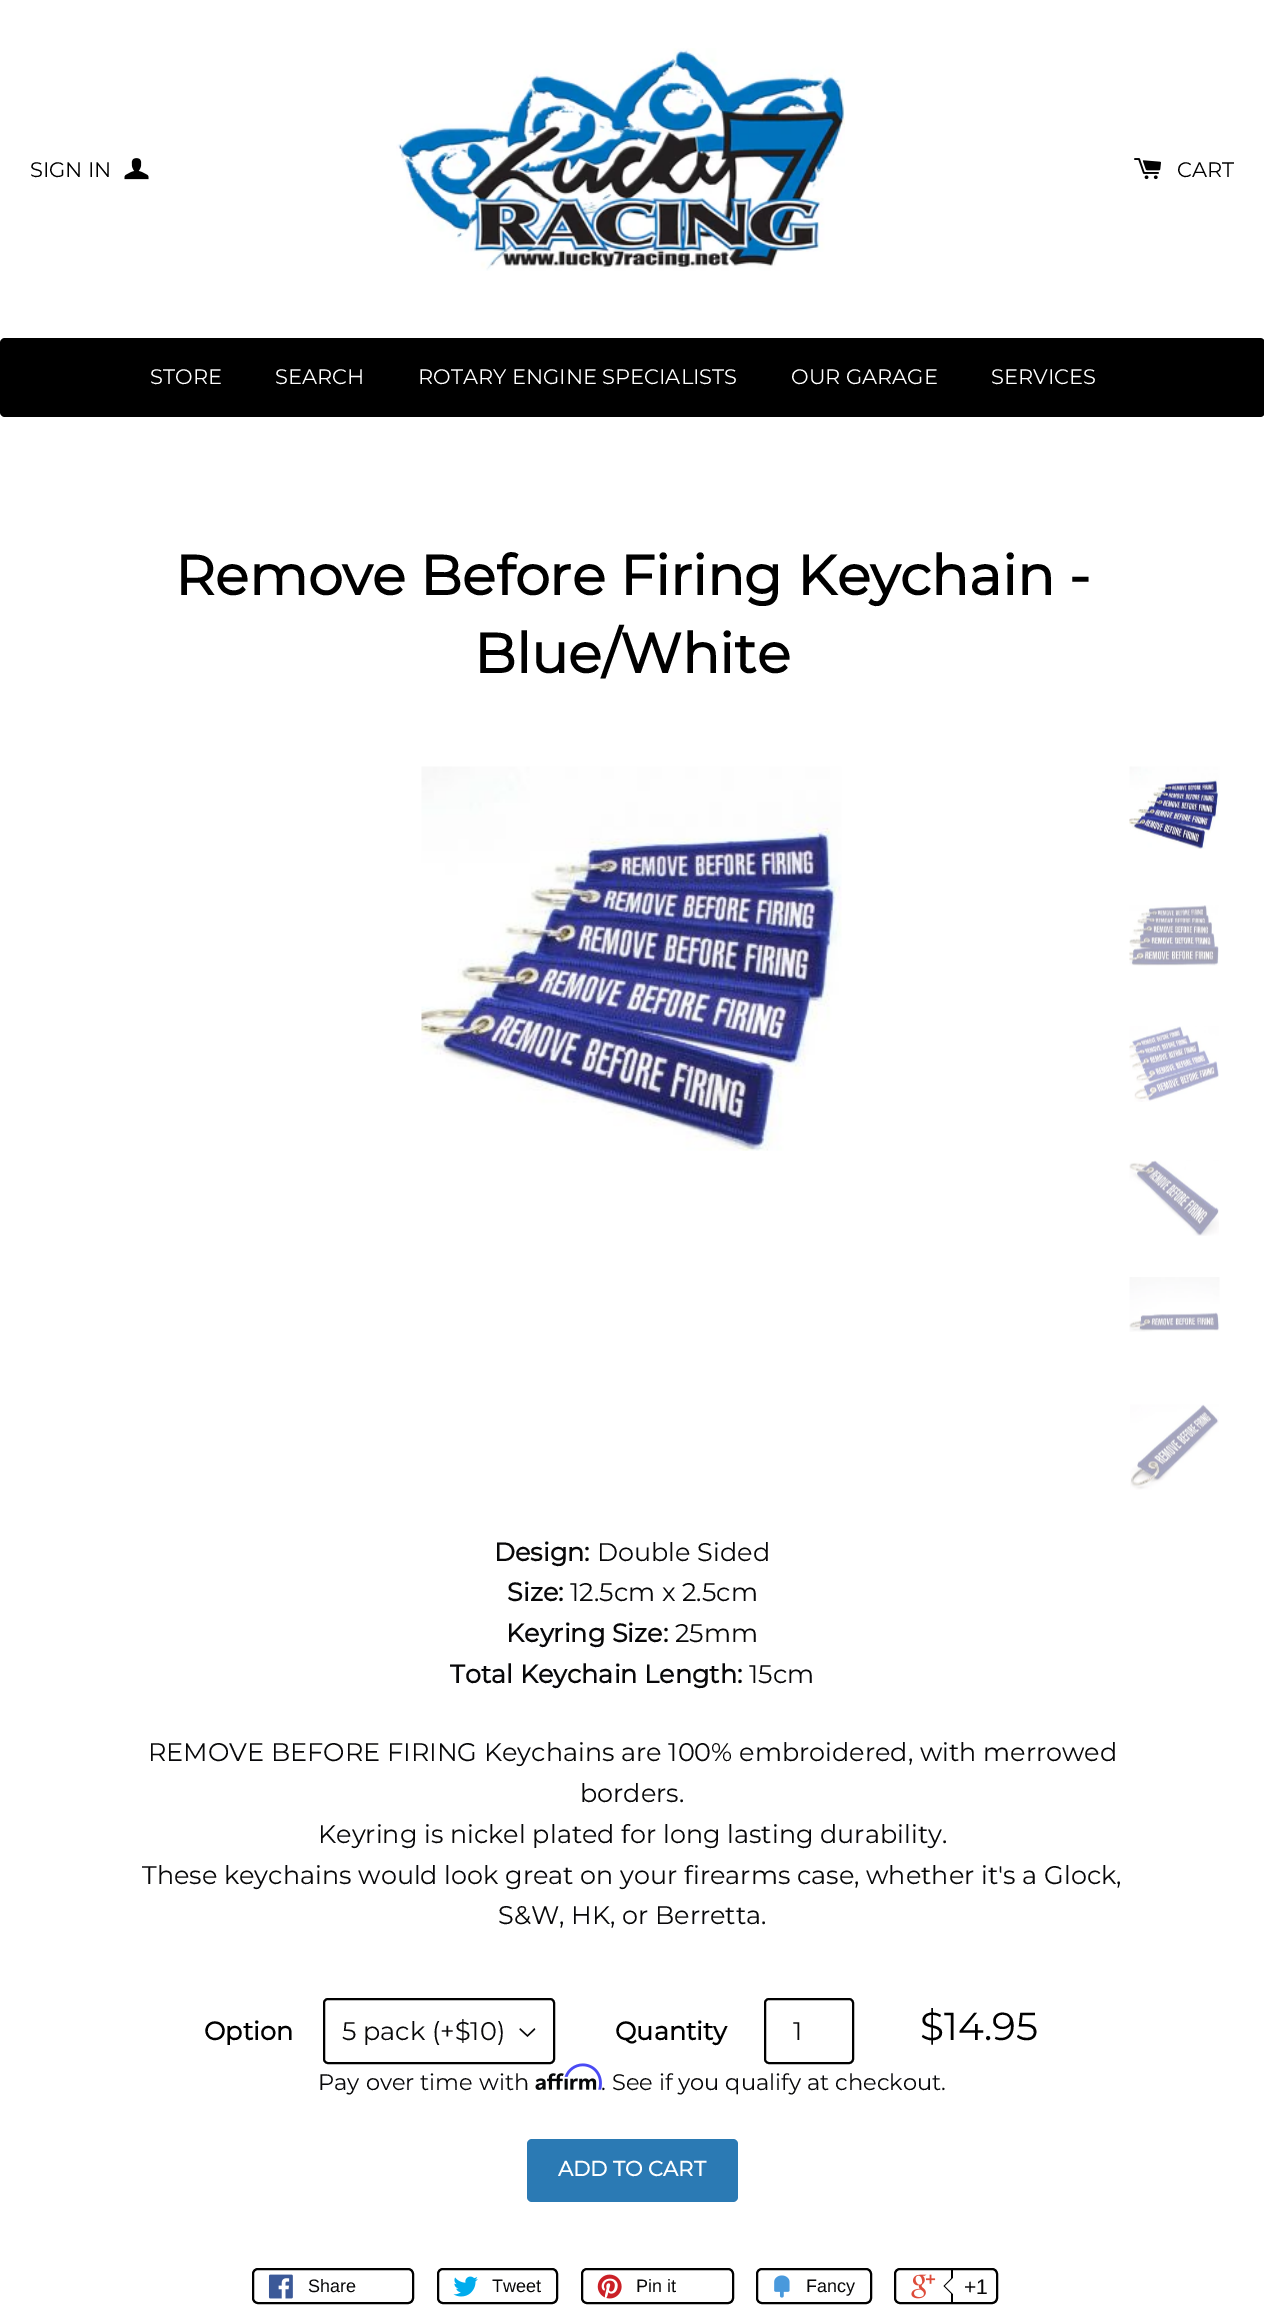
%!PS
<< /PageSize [1264 2308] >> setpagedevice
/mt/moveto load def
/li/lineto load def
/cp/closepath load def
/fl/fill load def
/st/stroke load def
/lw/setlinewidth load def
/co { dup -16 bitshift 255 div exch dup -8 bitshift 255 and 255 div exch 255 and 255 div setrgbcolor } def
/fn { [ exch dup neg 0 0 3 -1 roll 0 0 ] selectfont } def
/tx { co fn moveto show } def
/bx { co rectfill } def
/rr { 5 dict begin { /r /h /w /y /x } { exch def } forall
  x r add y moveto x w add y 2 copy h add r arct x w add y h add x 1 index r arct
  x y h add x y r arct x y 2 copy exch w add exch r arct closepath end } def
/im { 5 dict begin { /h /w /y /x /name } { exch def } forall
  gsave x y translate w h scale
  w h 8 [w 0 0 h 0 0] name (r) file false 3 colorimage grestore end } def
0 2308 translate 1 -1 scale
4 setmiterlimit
0 0 1264 2308 16#FFFFFF bx
(media/1.raw) 124 158 25 22 im
(media/2.raw) 396 48 449 223 im
(media/3.raw) 1134 158 27 22 im
16#000000 co
0 338 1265 79 5 rr fl
(media/4.raw) 421 766 421 385 im
(media/5.raw) 1129 766 91 83 im
(media/6.raw) 1129 905 90 61 im
(media/7.raw) 1129 1026 90 76 im
(media/8.raw) 1129 1160 90 76 im
(media/9.raw) 1129 1277 91 55 im
(media/10.raw) 1130 1404 89 86 im
(media/11.raw) 519 2028 17 9 im
2 lw
324 1999 230 64 4 rr st
765 1999 88 64 4 rr st
(media/13.raw) 535 2073 62 17 im
(media/12.raw) 564 2063 38 27 im
16#2B7AB4 co
527 2139 211 63 5 rr fl
16#000000 co
253 2269 160 34 5 rr st
(media/14.raw) 268 2274 25 25 im
438 2269 119 34 5 rr st
(media/15.raw) 453 2276 25 21 im
582 2269 151 34 5 rr st
(media/16.raw) 597 2274 25 25 im
757 2269 114 34 5 rr st
(media/17.raw) 774 2275 16 23 im
895 2269 102 34 5 rr st
(media/18.raw) 911 2274 25 25 im
951 2270 2 33 16#000000 bx
952.5 2277 mt 952.5 2295 li 943.5 2286 li cp fl
16#FFFFFF co
954 2277 mt 954 2295 li 945 2286 li cp fl
(SIGN IN) 30 177 /Montserrat-Thin 21 16#000000 tx
(CART) 1177 177 /Montserrat-Thin 21 16#000000 tx
(STORE) 150 384 /Montserrat-Thin 21 16#FFFFFF tx
(SEARCH) 275 384 /Montserrat-Thin 21 16#FFFFFF tx
(ROTARY ENGINE SPECIALISTS) 418 384 /Montserrat-Thin 21 16#FFFFFF tx
(OUR GARAGE) 791 384 /Montserrat-Thin 21 16#FFFFFF tx
(SERVICES) 991 384 /Montserrat-Thin 21 16#FFFFFF tx
(Remove Before Firing Keychain -) 175 595 /Montserrat-Bold 55.5 16#000000 tx
(Blue/White) 474 673 /Montserrat-Bold 55.5 16#000000 tx
(Design:) 494 1561 /Montserrat-Bold 25.5 16#080809 tx
(Double Sided) 597 1561 /Montserrat-Thin 25.5 16#080809 tx
(Size:) 507 1601 /Montserrat-Bold 25.5 16#080809 tx
(12.5cm x 2.5cm) 570 1601 /Montserrat-Thin 25.5 16#080809 tx
(Keyring Size:) 506 1642 /Montserrat-Bold 25.5 16#080809 tx
(25mm) 675 1642 /Montserrat-Thin 25.5 16#080809 tx
(Total Keychain Length:) 450 1683 /Montserrat-Bold 25.5 16#080809 tx
(15cm) 749 1683 /Montserrat-Thin 25.5 16#080809 tx
(REMOVE BEFORE FIRING Keychains are 100% embroidered, with merrowed) 148 1761 /Montserrat-Thin 25.5 16#080809 tx
(borders.) 580 1802 /Montserrat-Thin 25.5 16#080809 tx
(Keyring is nickel plated for long lasting durability.) 318 1843 /Montserrat-Thin 25.5 16#080809 tx
(These keychains would look great on your firearms case, whether it's a Glock,) 142 1884 /Montserrat-Thin 25.5 16#080809 tx
(S&W, HK, or Berretta.) 498 1924 /Montserrat-Thin 25.5 16#080809 tx
(Option) 204 2040 /Montserrat-Bold 25.5 16#000000 tx
(5 pack \(+$10\)) 342 2040 /Montserrat-Thin 25.5 16#080809 tx
(Quantity) 615 2040 /Montserrat-Bold 25.5 16#000000 tx
(1) 793 2040 /Montserrat-Thin 25.5 16#080809 tx
($14.95) 920 2040 /Montserrat-Thin 39 16#000000 tx
(Pay over time with) 318 2090 /Montserrat-Thin 22.5 16#080809 tx
(. See if you qualify at checkout.) 601 2090 /Montserrat-Thin 22.5 16#080809 tx
(ADD TO CART) 558 2176 /Montserrat-Bold 21 16#FFFFFF tx
(Share) 308 2292 /LiberationSans-Regular 18 16#080809 tx
(Tweet) 492 2292 /LiberationSans-Regular 18 16#080809 tx
(Pin it) 636 2292 /LiberationSans-Regular 18 16#080809 tx
(Fancy) 806 2292 /LiberationSans-Regular 18 16#080809 tx
(+1) 964 2294 /LiberationSans-Regular 21 16#080809 tx
showpage
